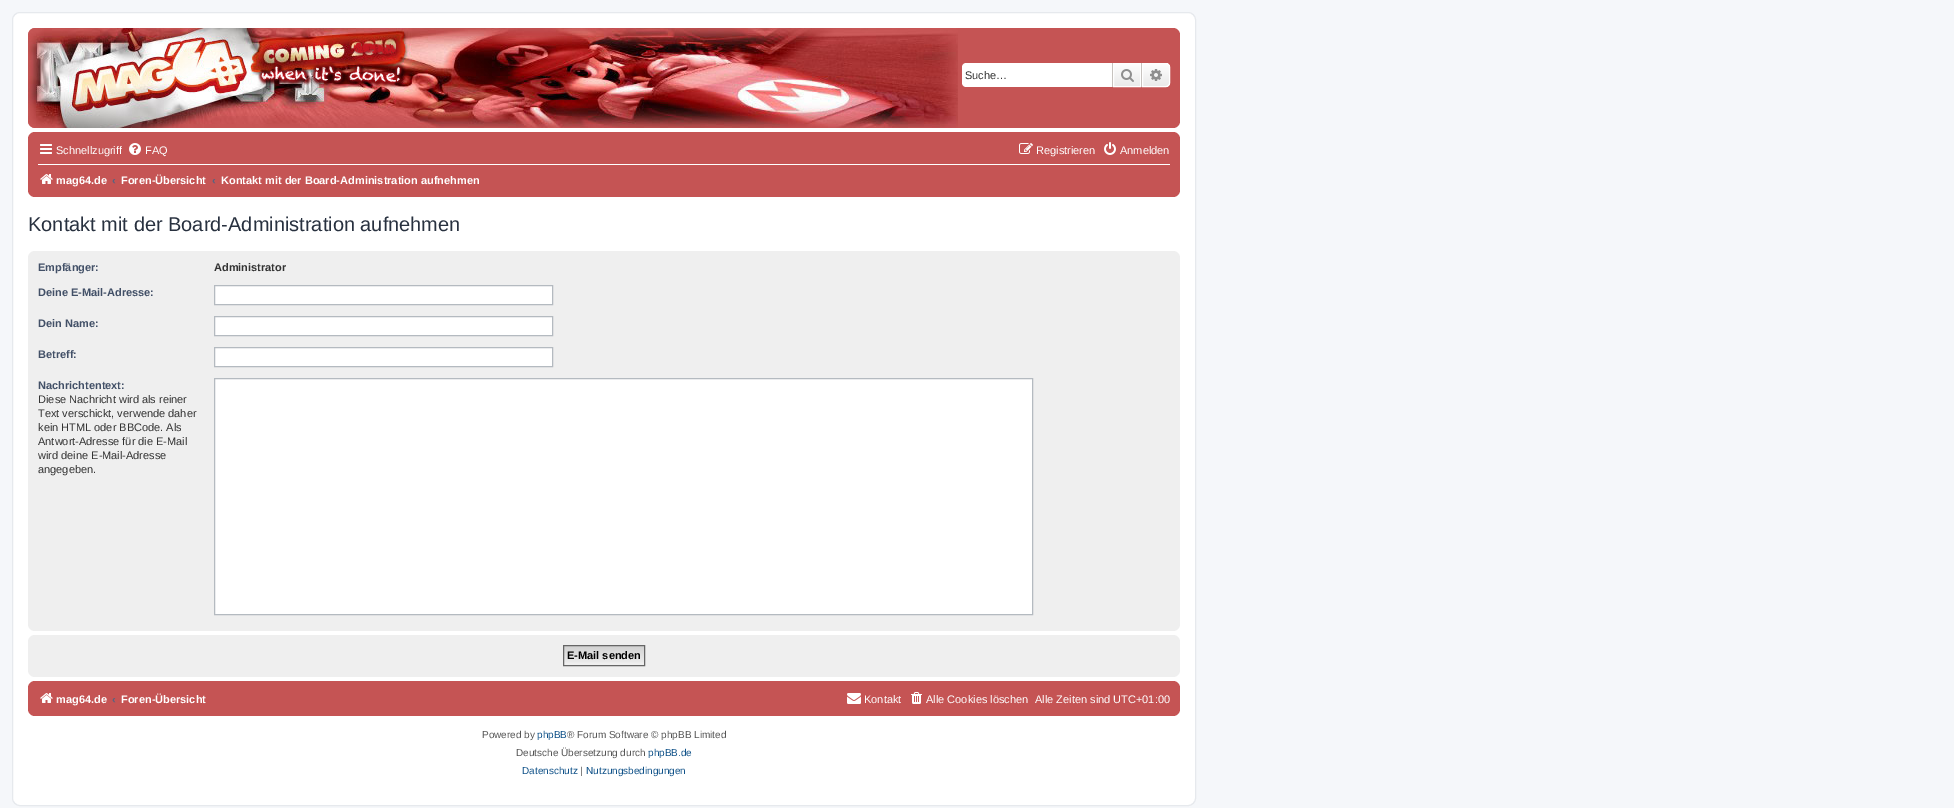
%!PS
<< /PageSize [1954 808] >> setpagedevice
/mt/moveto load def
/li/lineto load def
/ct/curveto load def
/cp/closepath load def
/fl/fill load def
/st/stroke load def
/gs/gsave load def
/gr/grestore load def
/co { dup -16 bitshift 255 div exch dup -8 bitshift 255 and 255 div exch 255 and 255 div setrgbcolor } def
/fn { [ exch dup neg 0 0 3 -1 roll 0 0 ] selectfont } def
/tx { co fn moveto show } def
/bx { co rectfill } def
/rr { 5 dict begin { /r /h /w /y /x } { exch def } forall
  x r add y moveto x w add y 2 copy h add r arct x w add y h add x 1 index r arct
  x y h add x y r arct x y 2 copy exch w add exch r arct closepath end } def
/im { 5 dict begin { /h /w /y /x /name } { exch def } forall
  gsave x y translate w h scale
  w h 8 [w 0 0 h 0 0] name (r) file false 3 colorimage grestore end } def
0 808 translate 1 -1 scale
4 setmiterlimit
0 0 1954 808 16#F5F7FA bx
16#FFFFFF co
12.5 12.5 1183 793 7.5 rr gs fl gr
16#E6E9ED co
st
16#C55454 co
28 28 1152 100 7 rr fl
(media/1.raw) 28 28 930 100 im
16#FFFFFF co
966 63 mt 1112 63 li 1112 87 li 966 87 li 964 87 962 85 962 83 ct 962 67 li 962 65 964 63 966 63 ct cp fl
gs 1114 64 mt 1140 64 li 1140 86 li 1114 86 li cp clip newpath
<< /ShadingType 2 /ColorSpace /DeviceRGB /Coords [1127 63 1127 87] /Extend [true true] /Function << /FunctionType 2 /Domain [0 1] /C0 [1 1 1] /C1 [.914 .914 .914] /N 1 >> >> shfill gr
1113.5 63.5 27 23 rectstroke
1141 63 1 24 16#C7C3BF bx
1112 63 1 24 16#C7C3BF bx
(media/2.raw) 1121 69 13 13 im
gs 1142.5 63.5 mt 1166 63.5 li 1168 63.5 1169.5 65 1169.5 67 ct 1169.5 83 li 1169.5 85 1168 86.5 1166 86.5 ct 1142.5 86.5 li cp clip newpath
<< /ShadingType 2 /ColorSpace /DeviceRGB /Coords [1156 63 1156 87] /Extend [true true] /Function << /FunctionType 2 /Domain [0 1] /C0 [1 1 1] /C1 [.914 .914 .914] /N 1 >> >> shfill gr
16#FFFFFF co
1142.5 63.5 mt 1166 63.5 li 1168 63.5 1169.5 65 1169.5 67 ct 1169.5 83 li 1169.5 85 1168 86.5 1166 86.5 ct 1142.5 86.5 li cp st
(media/3.raw) 1150 69 12 12 im
16#C55454 co
28 132 1152 65 7 rr fl
(media/4.raw) 40 144 12 10 im
(media/5.raw) 129 143 12 12 im
(media/6.raw) 1019 143 14 11 im
(media/7.raw) 1104 142 12 13 im
38 164 1132 1 16#FFFFFF bx
(media/8.raw) 40 174 13 10 im
16#EFEFEF co
28 251 1152 380 7 rr fl
16#FFFFFF co
214.5 285.5 mt 552.5 285.5 li 552.5 304.5 li 214.5 304.5 li cp gs fl gr
16#B4BAC0 co
st
16#FFFFFF co
214.5 316.5 mt 552.5 316.5 li 552.5 335.5 li 214.5 335.5 li cp gs fl gr
16#B4BAC0 co
st
16#FFFFFF co
214.5 347.5 mt 552.5 347.5 li 552.5 366.5 li 214.5 366.5 li cp gs fl gr
16#B4BAC0 co
st
16#FFFFFF co
214.5 378.5 mt 1032.5 378.5 li 1032.5 614.5 li 214.5 614.5 li cp gs fl gr
16#B4BAC0 co
st
16#EFEFEF co
28 635 1152 42 7 rr fl
gs 564 646 mt 644 646 li 644 663 li 564 663 li cp clip newpath
<< /ShadingType 2 /ColorSpace /DeviceRGB /Coords [604 646 604 665] /Extend [true true] /Function << /FunctionType 2 /Domain [0 1] /C0 [.824 .824 .824] /C1 [.937 .937 .937] /N 1 >> >> shfill gr
16#666666 co
563.5 645.5 81 20 rectstroke
16#C55454 co
28 681 1152 35 7 rr fl
(media/8.raw) 40 693 13 10 im
(media/9.raw) 847 693 14 11 im
(media/10.raw) 911 692 11 12 im
(Suche…) 965 79 /LiberationSans-Regular 11 16#333333 tx
(Schnellzugriff) 56 154 /LiberationSans-Regular 11 16#FFFFFF tx
(FAQ) 145 154 /LiberationSans-Regular 11 16#FFFFFF tx
(Registrieren) 1036 154 /LiberationSans-Regular 11 16#FFFFFF tx
(Anmelden) 1120 154 /LiberationSans-Regular 11 16#FFFFFF tx
(mag64.de) 56 184 /LiberationSans-Bold 11 16#FFFFFF tx
(‹) 112 184 /LiberationSans-Bold 11 16#536482 tx
(Foren-Übersicht) 121 184 /LiberationSans-Bold 11 16#FFFFFF tx
(‹) 212 184 /LiberationSans-Bold 11 16#536482 tx
(Kontakt mit der Board-Administration aufnehmen) 221 184 /LiberationSans-Bold 11 16#FFFFFF tx
(Kontakt mit der Board-Administration aufnehmen) 28 231 /LiberationSans-Regular 20 16#28313F tx
(Empfänger:) 38 271 /LiberationSans-Bold 11 16#425067 tx
(Administrator) 214 271 /LiberationSans-Bold 11 16#333333 tx
(Deine E-Mail-Adresse:) 38 296 /LiberationSans-Bold 11 16#425067 tx
(Dein Name:) 38 327 /LiberationSans-Bold 11 16#425067 tx
(Betreff:) 38 358 /LiberationSans-Bold 11 16#425067 tx
(Nachrichtentext:) 38 389 /LiberationSans-Bold 11 16#425067 tx
(Diese Nachricht wird als reiner) 38 403 /LiberationSans-Regular 11 16#333333 tx
(Text verschickt, verwende daher) 38 417 /LiberationSans-Regular 11 16#333333 tx
(kein HTML oder BBCode. Als) 38 431 /LiberationSans-Regular 11 16#333333 tx
(Antwort-Adresse für die E-Mail) 38 445 /LiberationSans-Regular 11 16#333333 tx
(wird deine E-Mail-Adresse) 38 459 /LiberationSans-Regular 11 16#333333 tx
(angegeben.) 38 473 /LiberationSans-Regular 11 16#333333 tx
(E-Mail senden) 567 659 /LiberationSans-Bold 11 16#000000 tx
(mag64.de) 56 703 /LiberationSans-Bold 11 16#FFFFFF tx
(‹) 112 703 /LiberationSans-Bold 11 16#536482 tx
(Foren-Übersicht) 121 703 /LiberationSans-Bold 11 16#FFFFFF tx
(Kontakt) 864 703 /LiberationSans-Regular 11 16#FFFFFF tx
(Alle Cookies löschen) 926 703 /LiberationSans-Regular 11 16#FFFFFF tx
(Alle Zeiten sind UTC+01:00) 1035 703 /LiberationSans-Regular 11 16#FFFFFF tx
(Powered by) 482 738 /LiberationSans-Regular 10 16#555555 tx
(phpBB) 537 738 /LiberationSans-Regular 10 16#105289 tx
(® Forum Software © phpBB Limited) 567 738 /LiberationSans-Regular 10 16#555555 tx
(Deutsche Übersetzung durch) 516 756 /LiberationSans-Regular 10 16#555555 tx
(phpBB.de) 648 756 /LiberationSans-Regular 10 16#105289 tx
(Datenschutz) 522 774 /LiberationSans-Regular 10 16#105289 tx
(|) 580 774 /LiberationSans-Regular 10 16#555555 tx
(Nutzungsbedingungen) 586 774 /LiberationSans-Regular 10 16#105289 tx
showpage
